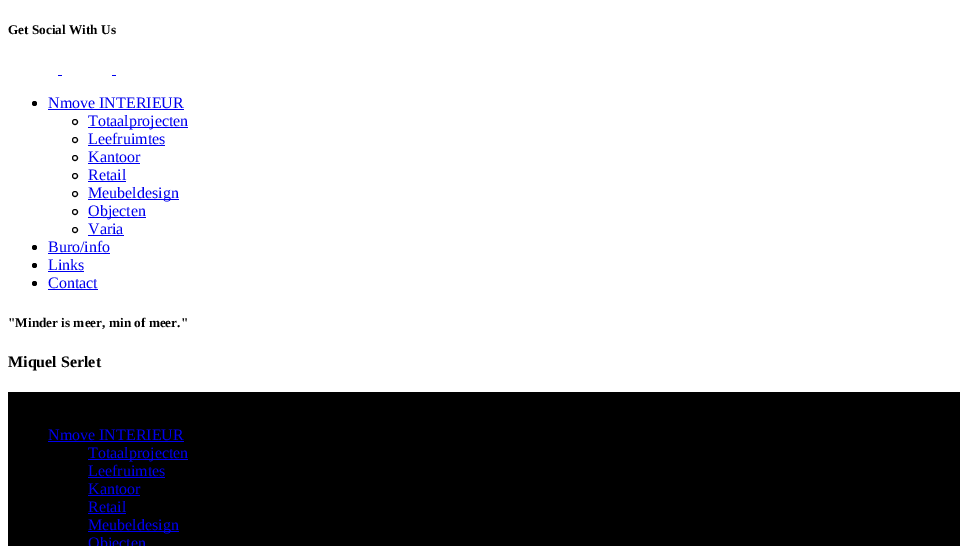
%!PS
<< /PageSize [968 546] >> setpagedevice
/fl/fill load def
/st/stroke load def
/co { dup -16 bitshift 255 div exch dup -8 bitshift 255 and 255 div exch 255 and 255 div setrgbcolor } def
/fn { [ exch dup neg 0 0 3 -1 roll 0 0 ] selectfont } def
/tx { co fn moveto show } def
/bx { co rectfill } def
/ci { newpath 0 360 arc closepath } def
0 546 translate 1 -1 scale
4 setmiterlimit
0 0 968 546 16#FFFFFF bx
58 75 4 1 16#0000EE bx
112 75 4 1 16#0000EE bx
16#000000 co
34.5 103.5 2.5 ci fl
48 109 136 1 16#0000EE bx
16#000000 co
75 122 2.5 ci st
88 127 100 1 16#0000EE bx
16#000000 co
75 140 2.5 ci st
88 145 77 1 16#0000EE bx
16#000000 co
75 158 2.5 ci st
88 163 52 1 16#0000EE bx
16#000000 co
75 176 2.5 ci st
88 181 38 1 16#0000EE bx
16#000000 co
75 194 2.5 ci st
88 199 91 1 16#0000EE bx
16#000000 co
75 212 2.5 ci st
88 217 58 1 16#0000EE bx
16#000000 co
75 230 2.5 ci st
88 235 36 1 16#0000EE bx
16#000000 co
34.5 247.5 2.5 ci fl
48 253 62 1 16#0000EE bx
16#000000 co
34.5 265.5 2.5 ci fl
48 271 36 1 16#0000EE bx
16#000000 co
34.5 283.5 2.5 ci fl
48 289 50 1 16#0000EE bx
8 392 952 154 16#000000 bx
48 441 136 1 16#0000EE bx
88 459 100 1 16#0000EE bx
88 477 77 1 16#0000EE bx
88 495 52 1 16#0000EE bx
88 513 38 1 16#0000EE bx
88 531 91 1 16#0000EE bx
(Get Social With Us) 8 34 /LiberationSerif-Bold 13.25 16#000000 tx
(Nmove INTERIEUR) 48 108 /LiberationSerif-Regular 16 16#0000EE tx
(Totaalprojecten) 88 126 /LiberationSerif-Regular 16 16#0000EE tx
(Leefruimtes) 88 144 /LiberationSerif-Regular 16 16#0000EE tx
(Kantoor) 88 162 /LiberationSerif-Regular 16 16#0000EE tx
(Retail) 88 180 /LiberationSerif-Regular 16 16#0000EE tx
(Meubeldesign) 88 198 /LiberationSerif-Regular 16 16#0000EE tx
(Objecten) 88 216 /LiberationSerif-Regular 16 16#0000EE tx
(Varia) 88 234 /LiberationSerif-Regular 16 16#0000EE tx
(Buro/info) 48 252 /LiberationSerif-Regular 16 16#0000EE tx
(Links) 48 270 /LiberationSerif-Regular 16 16#0000EE tx
(Contact) 48 288 /LiberationSerif-Regular 16 16#0000EE tx
("Minder is meer, min of meer.") 8 327 /LiberationSerif-Bold 13.25 16#000000 tx
(Miquel Serlet) 8 367 /LiberationSerif-Bold 16 16#000000 tx
(Nmove INTERIEUR) 48 440 /LiberationSerif-Regular 16 16#0000EE tx
(Totaalprojecten) 88 458 /LiberationSerif-Regular 16 16#0000EE tx
(Leefruimtes) 88 476 /LiberationSerif-Regular 16 16#0000EE tx
(Kantoor) 88 494 /LiberationSerif-Regular 16 16#0000EE tx
(Retail) 88 512 /LiberationSerif-Regular 16 16#0000EE tx
(Meubeldesign) 88 530 /LiberationSerif-Regular 16 16#0000EE tx
(Objecten) 88 548 /LiberationSerif-Regular 16 16#0000EE tx
showpage
